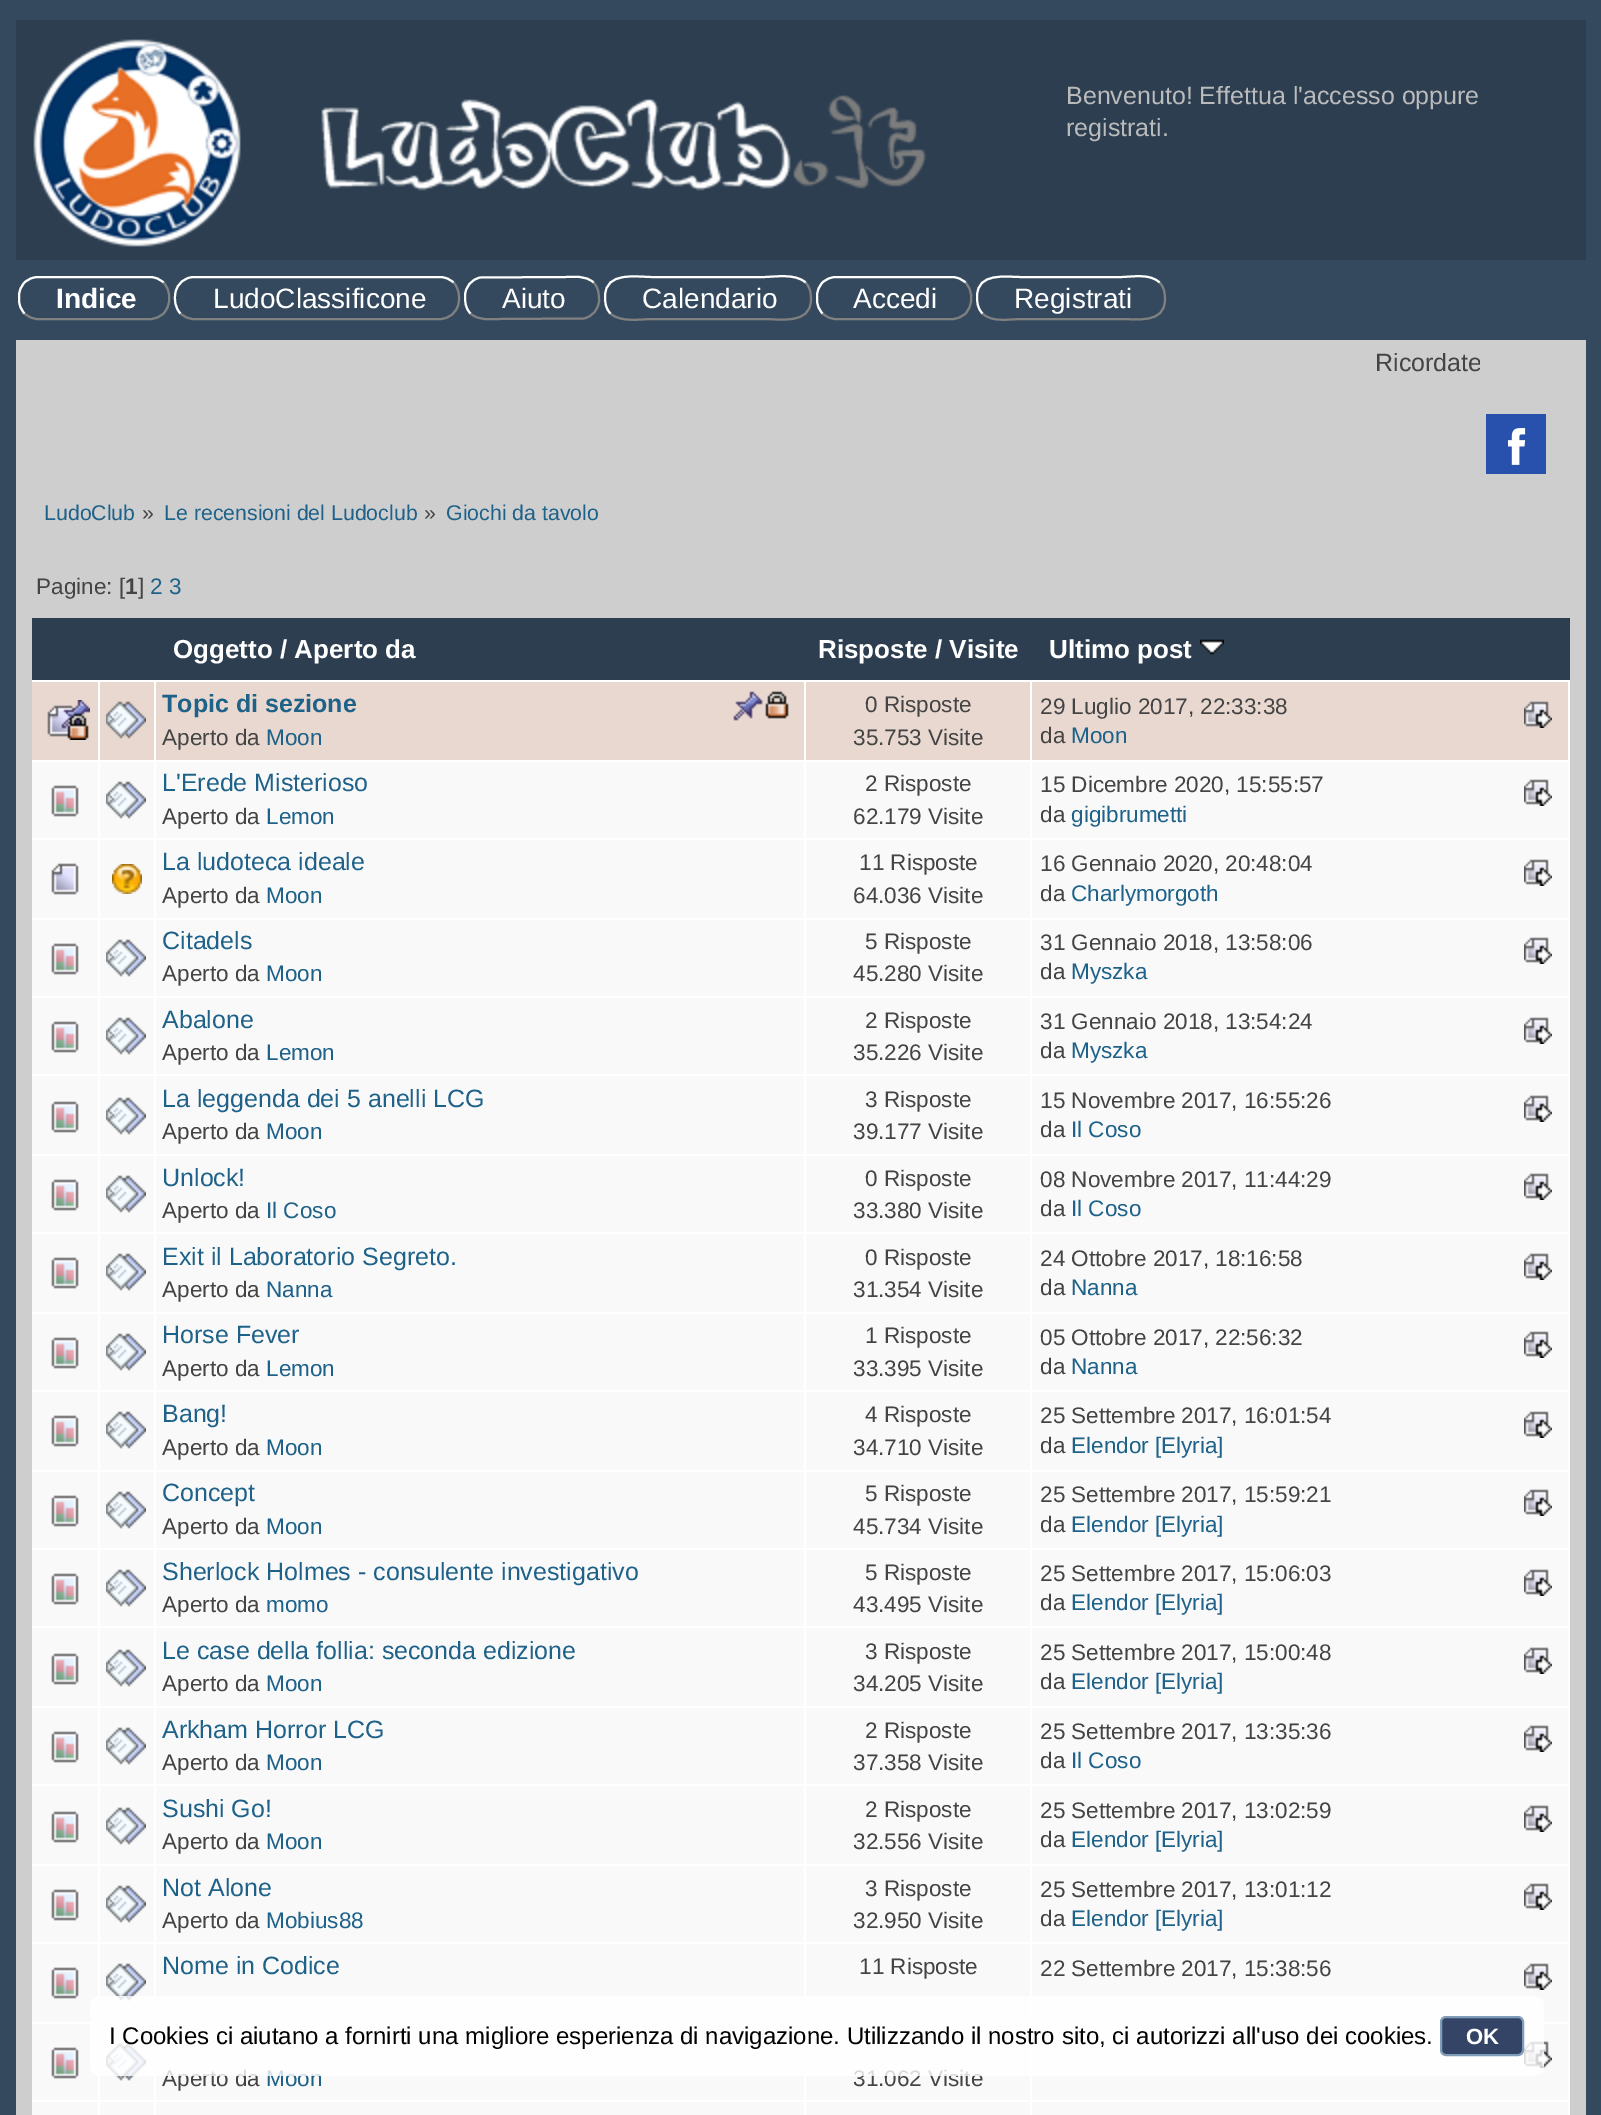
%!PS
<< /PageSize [1601 2115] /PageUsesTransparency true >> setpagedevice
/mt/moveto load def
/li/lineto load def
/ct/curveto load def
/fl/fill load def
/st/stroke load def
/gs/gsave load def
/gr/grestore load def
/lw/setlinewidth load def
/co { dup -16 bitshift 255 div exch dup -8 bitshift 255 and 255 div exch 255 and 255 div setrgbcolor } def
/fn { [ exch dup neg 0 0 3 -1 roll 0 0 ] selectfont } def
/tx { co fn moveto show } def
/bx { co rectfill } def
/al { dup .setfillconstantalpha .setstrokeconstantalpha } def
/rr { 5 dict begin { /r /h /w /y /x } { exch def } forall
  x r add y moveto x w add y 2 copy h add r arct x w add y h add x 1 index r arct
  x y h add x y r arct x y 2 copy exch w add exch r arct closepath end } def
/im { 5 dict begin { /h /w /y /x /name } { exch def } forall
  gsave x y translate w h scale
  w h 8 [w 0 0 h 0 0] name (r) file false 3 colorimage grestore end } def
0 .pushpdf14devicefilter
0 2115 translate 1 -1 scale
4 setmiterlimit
0 0 1601 2115 16#34495E bx
16 20 1570 240 16#2C3E50 bx
(media/1.raw) 33 39 894 208 im
16#808080 co
2 lw
163.5 282.5 mt 167 286 169 291 169 296 ct 169 300 li 169 305 167 310 163.5 313.5 ct 160 317 155 319 150 319 ct 38 319 li 33 319 28 317 24.5 313.5 ct st
16#FFFFFF co
24.5 313.5 mt 21 310 19 305 19 300 ct 19 296 li 19 291 21 286 24.5 282.5 ct 28 279 33 277 38 277 ct 150 277 li 155 277 160 279 163.5 282.5 ct st
16#808080 co
453.5 282.5 mt 459 288 460 296.5 458.5 303.5 ct 457 312.5 449 319 440 319 ct 194 319 li 189 319 184 317 180.5 313.5 ct st
16#FFFFFF co
180.5 313.5 mt 175 308 174 299.5 175.5 292.5 ct 177 283.5 185 277 194 277 ct 440 277 li 445 277 450 279 453.5 282.5 ct st
16#808080 co
593.5 282.5 mt 598.5 287.5 599 293.5 599 300 ct 599 309 592.5 317 583.5 318.5 ct 500 319 li 490 319 478.5 321 470.5 313.5 ct st
16#FFFFFF co
470.5 313.5 mt 465.5 308.5 465 302.5 465 296 ct 465 287 471.5 279 480.5 277.5 ct 564 277 li 574 277 585.5 275 593.5 282.5 ct st
16#808080 co
805.5 282.5 mt 810.5 287.5 811 293.5 811 300 ct 810.5 325 779.5 319 764 319 ct 652 319 li 642 319 620.5 323 610.5 313.5 ct st
16#FFFFFF co
610.5 313.5 mt 605.5 308.5 605 302.5 605 296 ct 605.5 271 636.5 277 652 277 ct 764 277 li 774 277 795.5 273 805.5 282.5 ct st
16#808080 co
965.5 282.5 mt 969 286 971 291 971 296 ct 971 300 li 971 305 969 310 965.5 313.5 ct 962 317 957 319 952 319 ct 836 319 li 831 319 826 317 822.5 313.5 ct st
16#FFFFFF co
822.5 313.5 mt 819 310 817 305 817 300 ct 817 296 li 817 291 819 286 822.5 282.5 ct 826 279 831 277 836 277 ct 952 277 li 957 277 962 279 965.5 282.5 ct st
16#808080 co
1159.5 282.5 mt 1164.5 287.5 1165 293.5 1165 300 ct 1164.5 324 1136.5 319 1121 319 ct 1021 319 li 1010.5 319 992 323 982.5 313.5 ct st
16#FFFFFF co
982.5 313.5 mt 977.5 308.5 977 302.5 977 296 ct 977.5 272 1005.5 277 1021 277 ct 1121 277 li 1131.5 277 1150 273 1159.5 282.5 ct st
16 340 1570 1775 16#CECECE bx
1486 414 60 60 16#2850AD bx
(media/2.raw) 1508 428 18 37 im
32 680 1538 2 16#FFFFFF bx
32 618 1538 62 16#2C3E50 bx
(media/3.raw) 1200 639 24 16 im
32 2102 66 13 16#F9F9F9 bx
98 2100 2 15 16#FFFFFF bx
100 2102 54 13 16#F9F9F9 bx
154 2100 2 15 16#FFFFFF bx
156 2102 648 13 16#F9F9F9 bx
804 2100 2 15 16#FFFFFF bx
806 2102 224 13 16#F9F9F9 bx
1030 2100 2 15 16#FFFFFF bx
1032 2102 536 13 16#F9F9F9 bx
1568 680 2 1435 16#FFFFFF bx
32 682 66 78 16#E8D8CF bx
1030 2100 540 2 16#FFFFFF bx
1030 2022 2 80 16#FFFFFF bx
1030 2022 540 2 16#FFFFFF bx
1030 1942 2 82 16#FFFFFF bx
1030 1942 540 2 16#FFFFFF bx
1030 1864 2 80 16#FFFFFF bx
1030 1864 540 2 16#FFFFFF bx
1030 1784 2 82 16#FFFFFF bx
1030 1784 540 2 16#FFFFFF bx
1030 1706 2 80 16#FFFFFF bx
1030 1706 540 2 16#FFFFFF bx
1030 1626 2 82 16#FFFFFF bx
1030 1626 540 2 16#FFFFFF bx
1030 1548 2 80 16#FFFFFF bx
1030 1548 540 2 16#FFFFFF bx
1030 1470 2 80 16#FFFFFF bx
1030 1470 540 2 16#FFFFFF bx
1030 1390 2 82 16#FFFFFF bx
1030 1390 540 2 16#FFFFFF bx
1030 1312 2 80 16#FFFFFF bx
1030 1312 540 2 16#FFFFFF bx
1030 1232 2 82 16#FFFFFF bx
1030 1232 540 2 16#FFFFFF bx
1030 1154 2 80 16#FFFFFF bx
1030 1154 540 2 16#FFFFFF bx
1030 1074 2 82 16#FFFFFF bx
1030 1074 540 2 16#FFFFFF bx
1030 996 2 80 16#FFFFFF bx
1030 996 540 2 16#FFFFFF bx
1030 918 2 80 16#FFFFFF bx
1030 918 540 2 16#FFFFFF bx
1030 838 2 82 16#FFFFFF bx
1030 838 540 2 16#FFFFFF bx
1030 760 2 80 16#FFFFFF bx
1030 760 540 2 16#FFFFFF bx
1030 680 2 82 16#FFFFFF bx
804 2100 228 2 16#FFFFFF bx
804 2022 2 80 16#FFFFFF bx
804 2022 228 2 16#FFFFFF bx
804 1942 2 82 16#FFFFFF bx
804 1942 228 2 16#FFFFFF bx
804 1864 2 80 16#FFFFFF bx
804 1864 228 2 16#FFFFFF bx
804 1784 2 82 16#FFFFFF bx
804 1784 228 2 16#FFFFFF bx
804 1706 2 80 16#FFFFFF bx
804 1706 228 2 16#FFFFFF bx
804 1626 2 82 16#FFFFFF bx
804 1626 228 2 16#FFFFFF bx
804 1548 2 80 16#FFFFFF bx
804 1548 228 2 16#FFFFFF bx
804 1470 2 80 16#FFFFFF bx
804 1470 228 2 16#FFFFFF bx
804 1390 2 82 16#FFFFFF bx
804 1390 228 2 16#FFFFFF bx
804 1312 2 80 16#FFFFFF bx
804 1312 228 2 16#FFFFFF bx
804 1232 2 82 16#FFFFFF bx
804 1232 228 2 16#FFFFFF bx
804 1154 2 80 16#FFFFFF bx
804 1154 228 2 16#FFFFFF bx
804 1074 2 82 16#FFFFFF bx
804 1074 228 2 16#FFFFFF bx
804 996 2 80 16#FFFFFF bx
804 996 228 2 16#FFFFFF bx
804 918 2 80 16#FFFFFF bx
804 918 228 2 16#FFFFFF bx
804 838 2 82 16#FFFFFF bx
804 838 228 2 16#FFFFFF bx
804 760 2 80 16#FFFFFF bx
804 760 228 2 16#FFFFFF bx
804 680 2 82 16#FFFFFF bx
154 2100 652 2 16#FFFFFF bx
154 2022 2 80 16#FFFFFF bx
154 2022 652 2 16#FFFFFF bx
154 1942 2 82 16#FFFFFF bx
154 1942 652 2 16#FFFFFF bx
154 1864 2 80 16#FFFFFF bx
154 1864 652 2 16#FFFFFF bx
154 1784 2 82 16#FFFFFF bx
154 1784 652 2 16#FFFFFF bx
154 1706 2 80 16#FFFFFF bx
154 1706 652 2 16#FFFFFF bx
154 1626 2 82 16#FFFFFF bx
154 1626 652 2 16#FFFFFF bx
154 1548 2 80 16#FFFFFF bx
154 1548 652 2 16#FFFFFF bx
154 1470 2 80 16#FFFFFF bx
154 1470 652 2 16#FFFFFF bx
154 1390 2 82 16#FFFFFF bx
154 1390 652 2 16#FFFFFF bx
154 1312 2 80 16#FFFFFF bx
154 1312 652 2 16#FFFFFF bx
154 1232 2 82 16#FFFFFF bx
154 1232 652 2 16#FFFFFF bx
154 1154 2 80 16#FFFFFF bx
154 1154 652 2 16#FFFFFF bx
154 1074 2 82 16#FFFFFF bx
154 1074 652 2 16#FFFFFF bx
154 996 2 80 16#FFFFFF bx
154 996 652 2 16#FFFFFF bx
154 918 2 80 16#FFFFFF bx
154 918 652 2 16#FFFFFF bx
154 838 2 82 16#FFFFFF bx
154 838 652 2 16#FFFFFF bx
154 760 2 80 16#FFFFFF bx
154 760 652 2 16#FFFFFF bx
154 680 2 82 16#FFFFFF bx
98 2100 58 2 16#FFFFFF bx
98 2022 2 80 16#FFFFFF bx
98 2022 58 2 16#FFFFFF bx
98 1942 2 82 16#FFFFFF bx
98 1942 58 2 16#FFFFFF bx
98 1864 2 80 16#FFFFFF bx
98 1864 58 2 16#FFFFFF bx
98 1784 2 82 16#FFFFFF bx
98 1784 58 2 16#FFFFFF bx
98 1706 2 80 16#FFFFFF bx
98 1706 58 2 16#FFFFFF bx
98 1626 2 82 16#FFFFFF bx
98 1626 58 2 16#FFFFFF bx
98 1548 2 80 16#FFFFFF bx
98 1548 58 2 16#FFFFFF bx
98 1470 2 80 16#FFFFFF bx
98 1470 58 2 16#FFFFFF bx
98 1390 2 82 16#FFFFFF bx
98 1390 58 2 16#FFFFFF bx
98 1312 2 80 16#FFFFFF bx
98 1312 58 2 16#FFFFFF bx
98 1232 2 82 16#FFFFFF bx
98 1232 58 2 16#FFFFFF bx
98 1154 2 80 16#FFFFFF bx
98 1154 58 2 16#FFFFFF bx
98 1074 2 82 16#FFFFFF bx
98 1074 58 2 16#FFFFFF bx
98 996 2 80 16#FFFFFF bx
98 996 58 2 16#FFFFFF bx
98 918 2 80 16#FFFFFF bx
98 918 58 2 16#FFFFFF bx
98 838 2 82 16#FFFFFF bx
98 838 58 2 16#FFFFFF bx
98 760 2 80 16#FFFFFF bx
98 760 58 2 16#FFFFFF bx
98 680 2 82 16#FFFFFF bx
32 760 68 2 16#FFFFFF bx
(media/4.raw) 47 700 43 40 im
100 682 54 78 16#E8D8CF bx
(media/5.raw) 106 701 40 38 im
156 682 648 78 16#E8D8CF bx
(media/6.raw) 733 691 56 30 im
806 682 224 78 16#E8D8CF bx
1032 682 536 78 16#E8D8CF bx
(media/7.raw) 1524 701 28 27 im
32 762 66 76 16#F9F9F9 bx
32 838 68 2 16#FFFFFF bx
(media/8.raw) 51 785 28 32 im
100 762 54 76 16#F9F9F9 bx
(media/9.raw) 106 781 40 38 im
156 762 648 76 16#F9F9F9 bx
806 762 224 76 16#F9F9F9 bx
1032 762 536 76 16#F9F9F9 bx
(media/10.raw) 1524 779 28 27 im
32 840 66 78 16#F9F9F9 bx
32 918 68 2 16#FFFFFF bx
(media/11.raw) 51 863 28 32 im
100 840 54 78 16#F9F9F9 bx
(media/12.raw) 112 864 30 30 im
156 840 648 78 16#F9F9F9 bx
806 840 224 78 16#F9F9F9 bx
1032 840 536 78 16#F9F9F9 bx
(media/10.raw) 1524 859 28 27 im
32 920 66 76 16#F9F9F9 bx
32 996 68 2 16#FFFFFF bx
(media/8.raw) 51 943 28 32 im
100 920 54 76 16#F9F9F9 bx
(media/9.raw) 106 939 40 38 im
156 920 648 76 16#F9F9F9 bx
806 920 224 76 16#F9F9F9 bx
1032 920 536 76 16#F9F9F9 bx
(media/10.raw) 1524 937 28 27 im
32 998 66 76 16#F9F9F9 bx
32 1074 68 2 16#FFFFFF bx
(media/8.raw) 51 1021 28 32 im
100 998 54 76 16#F9F9F9 bx
(media/9.raw) 106 1017 40 38 im
156 998 648 76 16#F9F9F9 bx
806 998 224 76 16#F9F9F9 bx
1032 998 536 76 16#F9F9F9 bx
(media/10.raw) 1524 1017 28 27 im
32 1076 66 78 16#F9F9F9 bx
32 1154 68 2 16#FFFFFF bx
(media/8.raw) 51 1101 28 32 im
100 1076 54 78 16#F9F9F9 bx
(media/9.raw) 106 1097 40 38 im
156 1076 648 78 16#F9F9F9 bx
806 1076 224 78 16#F9F9F9 bx
1032 1076 536 78 16#F9F9F9 bx
(media/10.raw) 1524 1095 28 27 im
32 1156 66 76 16#F9F9F9 bx
32 1232 68 2 16#FFFFFF bx
(media/8.raw) 51 1179 28 32 im
100 1156 54 76 16#F9F9F9 bx
(media/9.raw) 106 1175 40 38 im
156 1156 648 76 16#F9F9F9 bx
806 1156 224 76 16#F9F9F9 bx
1032 1156 536 76 16#F9F9F9 bx
(media/10.raw) 1524 1173 28 27 im
32 1234 66 78 16#F9F9F9 bx
32 1312 68 2 16#FFFFFF bx
(media/8.raw) 51 1257 28 32 im
100 1234 54 78 16#F9F9F9 bx
(media/9.raw) 106 1253 40 38 im
156 1234 648 78 16#F9F9F9 bx
806 1234 224 78 16#F9F9F9 bx
1032 1234 536 78 16#F9F9F9 bx
(media/10.raw) 1524 1253 28 27 im
32 1314 66 76 16#F9F9F9 bx
32 1390 68 2 16#FFFFFF bx
(media/8.raw) 51 1337 28 32 im
100 1314 54 76 16#F9F9F9 bx
(media/9.raw) 106 1333 40 38 im
156 1314 648 76 16#F9F9F9 bx
806 1314 224 76 16#F9F9F9 bx
1032 1314 536 76 16#F9F9F9 bx
(media/10.raw) 1524 1331 28 27 im
32 1392 66 78 16#F9F9F9 bx
32 1470 68 2 16#FFFFFF bx
(media/8.raw) 51 1415 28 32 im
100 1392 54 78 16#F9F9F9 bx
(media/9.raw) 106 1411 40 38 im
156 1392 648 78 16#F9F9F9 bx
806 1392 224 78 16#F9F9F9 bx
1032 1392 536 78 16#F9F9F9 bx
(media/10.raw) 1524 1411 28 27 im
32 1472 66 76 16#F9F9F9 bx
32 1548 68 2 16#FFFFFF bx
(media/8.raw) 51 1495 28 32 im
100 1472 54 76 16#F9F9F9 bx
(media/9.raw) 106 1491 40 38 im
156 1472 648 76 16#F9F9F9 bx
806 1472 224 76 16#F9F9F9 bx
1032 1472 536 76 16#F9F9F9 bx
(media/10.raw) 1524 1489 28 27 im
32 1550 66 76 16#F9F9F9 bx
32 1626 68 2 16#FFFFFF bx
(media/8.raw) 51 1573 28 32 im
100 1550 54 76 16#F9F9F9 bx
(media/9.raw) 106 1569 40 38 im
156 1550 648 76 16#F9F9F9 bx
806 1550 224 76 16#F9F9F9 bx
1032 1550 536 76 16#F9F9F9 bx
(media/10.raw) 1524 1569 28 27 im
32 1628 66 78 16#F9F9F9 bx
32 1706 68 2 16#FFFFFF bx
(media/8.raw) 51 1653 28 32 im
100 1628 54 78 16#F9F9F9 bx
(media/9.raw) 106 1649 40 38 im
156 1628 648 78 16#F9F9F9 bx
806 1628 224 78 16#F9F9F9 bx
1032 1628 536 78 16#F9F9F9 bx
(media/10.raw) 1524 1647 28 27 im
32 1708 66 76 16#F9F9F9 bx
32 1784 68 2 16#FFFFFF bx
(media/8.raw) 51 1731 28 32 im
100 1708 54 76 16#F9F9F9 bx
(media/9.raw) 106 1727 40 38 im
156 1708 648 76 16#F9F9F9 bx
806 1708 224 76 16#F9F9F9 bx
1032 1708 536 76 16#F9F9F9 bx
(media/10.raw) 1524 1725 28 27 im
32 1786 66 78 16#F9F9F9 bx
32 1864 68 2 16#FFFFFF bx
(media/8.raw) 51 1811 28 32 im
100 1786 54 78 16#F9F9F9 bx
(media/9.raw) 106 1807 40 38 im
156 1786 648 78 16#F9F9F9 bx
806 1786 224 78 16#F9F9F9 bx
1032 1786 536 78 16#F9F9F9 bx
(media/10.raw) 1524 1805 28 27 im
32 1866 66 76 16#F9F9F9 bx
32 1942 68 2 16#FFFFFF bx
(media/8.raw) 51 1889 28 32 im
100 1866 54 76 16#F9F9F9 bx
(media/9.raw) 106 1885 40 38 im
156 1866 648 76 16#F9F9F9 bx
806 1866 224 76 16#F9F9F9 bx
1032 1866 536 76 16#F9F9F9 bx
(media/10.raw) 1524 1883 28 27 im
32 1944 66 78 16#F9F9F9 bx
32 2022 68 2 16#FFFFFF bx
(media/8.raw) 51 1967 28 32 im
100 1944 54 78 16#F9F9F9 bx
(media/9.raw) 106 1963 40 38 im
156 1944 648 78 16#F9F9F9 bx
806 1944 224 78 16#F9F9F9 bx
1032 1944 536 78 16#F9F9F9 bx
(media/10.raw) 1524 1963 28 27 im
32 2024 66 76 16#F9F9F9 bx
32 2100 68 2 16#FFFFFF bx
(media/8.raw) 51 2047 28 32 im
100 2024 54 76 16#F9F9F9 bx
(media/9.raw) 106 2043 40 38 im
156 2024 648 76 16#F9F9F9 bx
806 2024 224 76 16#F9F9F9 bx
1032 2024 536 76 16#F9F9F9 bx
(media/10.raw) 1524 2041 28 27 im
(Benvenuto! Effettua l'accesso oppure) 1066 104 /LiberationSans-Regular 25 16#BBBBBB tx
(registrati.) 1066 136 /LiberationSans-Regular 25 16#BBBBBB tx
(Indice) 56 308 /LiberationSans-Bold 28 16#FFFFFF tx
(LudoClassificone) 213 308 /LiberationSans-Regular 28 16#FFFFFF tx
(Aiuto) 502 308 /LiberationSans-Regular 28 16#FFFFFF tx
(Calendario) 642 308 /LiberationSans-Regular 28 16#FFFFFF tx
(Accedi) 853 308 /LiberationSans-Regular 28 16#FFFFFF tx
(Registrati) 1014 308 /LiberationSans-Regular 28 16#FFFFFF tx
gs
66 348 1414 32 rectclip
(Ricordate) 1375 371 /LiberationSans-Regular 25 16#444444 tx
gr
(LudoClub) 44 520 /LiberationSans-Regular 21.3 16#1E6189 tx
(») 142 520 /LiberationSans-Regular 21.3 16#444444 tx
(Le recensioni del Ludoclub) 164 520 /LiberationSans-Regular 21.3 16#1E6189 tx
(») 424 520 /LiberationSans-Regular 21.3 16#444444 tx
(Giochi da tavolo) 446 520 /LiberationSans-Regular 21.3 16#1E6189 tx
(Pagine: [) 36 594 /LiberationSans-Regular 22.5 16#444444 tx
(1) 125 594 /LiberationSans-Bold 22.5 16#444444 tx
(]) 138 594 /LiberationSans-Regular 22.5 16#444444 tx
(2 3) 150 594 /LiberationSans-Regular 22.5 16#1E6189 tx
(Oggetto / Aperto da) 173 658 /LiberationSans-Bold 26 16#FFFFFF tx
(Risposte / Visite) 818 658 /LiberationSans-Bold 26 16#FFFFFF tx
(Ultimo post) 1049 658 /LiberationSans-Bold 26 16#FFFFFF tx
(Topic di sezione) 162 712 /LiberationSans-Bold 25 16#1E6189 tx
(Aperto da) 162 745 /LiberationSans-Regular 22.5 16#444444 tx
(Moon) 266 745 /LiberationSans-Regular 22.5 16#1E6189 tx
(0 Risposte) 865 712 /LiberationSans-Regular 22.5 16#444444 tx
(35.753 Visite) 853 745 /LiberationSans-Regular 22.5 16#444444 tx
(29 Luglio 2017, 22:33:38) 1040 714 /LiberationSans-Regular 22.5 16#444444 tx
(da) 1040 743 /LiberationSans-Regular 22.5 16#444444 tx
(Moon) 1071 743 /LiberationSans-Regular 22.5 16#1E6189 tx
(L'Erede Misterioso) 162 791 /LiberationSans-Regular 25 16#1E6189 tx
(Aperto da) 162 824 /LiberationSans-Regular 22.5 16#444444 tx
(Lemon) 266 824 /LiberationSans-Regular 22.5 16#1E6189 tx
(2 Risposte) 865 791 /LiberationSans-Regular 22.5 16#444444 tx
(62.179 Visite) 853 824 /LiberationSans-Regular 22.5 16#444444 tx
(15 Dicembre 2020, 15:55:57) 1040 792 /LiberationSans-Regular 22.5 16#444444 tx
(da) 1040 822 /LiberationSans-Regular 22.5 16#444444 tx
(gigibrumetti) 1071 822 /LiberationSans-Regular 22.5 16#1E6189 tx
(La ludoteca ideale) 162 870 /LiberationSans-Regular 25 16#1E6189 tx
(Aperto da) 162 903 /LiberationSans-Regular 22.5 16#444444 tx
(Moon) 266 903 /LiberationSans-Regular 22.5 16#1E6189 tx
(11 Risposte) 859 870 /LiberationSans-Regular 22.5 16#444444 tx
(64.036 Visite) 853 903 /LiberationSans-Regular 22.5 16#444444 tx
(16 Gennaio 2020, 20:48:04) 1040 871 /LiberationSans-Regular 22.5 16#444444 tx
(da) 1040 901 /LiberationSans-Regular 22.5 16#444444 tx
(Charlymorgoth) 1071 901 /LiberationSans-Regular 22.5 16#1E6189 tx
(Citadels) 162 949 /LiberationSans-Regular 25 16#1E6189 tx
(Aperto da) 162 981 /LiberationSans-Regular 22.5 16#444444 tx
(Moon) 266 981 /LiberationSans-Regular 22.5 16#1E6189 tx
(5 Risposte) 865 949 /LiberationSans-Regular 22.5 16#444444 tx
(45.280 Visite) 853 981 /LiberationSans-Regular 22.5 16#444444 tx
(31 Gennaio 2018, 13:58:06) 1040 950 /LiberationSans-Regular 22.5 16#444444 tx
(da) 1040 979 /LiberationSans-Regular 22.5 16#444444 tx
(Myszka) 1071 979 /LiberationSans-Regular 22.5 16#1E6189 tx
(Abalone) 162 1028 /LiberationSans-Regular 25 16#1E6189 tx
(Aperto da) 162 1060 /LiberationSans-Regular 22.5 16#444444 tx
(Lemon) 266 1060 /LiberationSans-Regular 22.5 16#1E6189 tx
(2 Risposte) 865 1028 /LiberationSans-Regular 22.5 16#444444 tx
(35.226 Visite) 853 1060 /LiberationSans-Regular 22.5 16#444444 tx
(31 Gennaio 2018, 13:54:24) 1040 1029 /LiberationSans-Regular 22.5 16#444444 tx
(da) 1040 1058 /LiberationSans-Regular 22.5 16#444444 tx
(Myszka) 1071 1058 /LiberationSans-Regular 22.5 16#1E6189 tx
(La leggenda dei 5 anelli LCG) 162 1107 /LiberationSans-Regular 25 16#1E6189 tx
(Aperto da) 162 1139 /LiberationSans-Regular 22.5 16#444444 tx
(Moon) 266 1139 /LiberationSans-Regular 22.5 16#1E6189 tx
(3 Risposte) 865 1107 /LiberationSans-Regular 22.5 16#444444 tx
(39.177 Visite) 853 1139 /LiberationSans-Regular 22.5 16#444444 tx
(15 Novembre 2017, 16:55:26) 1040 1108 /LiberationSans-Regular 22.5 16#444444 tx
(da) 1040 1137 /LiberationSans-Regular 22.5 16#444444 tx
(Il Coso) 1071 1137 /LiberationSans-Regular 22.5 16#1E6189 tx
(Unlock!) 162 1186 /LiberationSans-Regular 25 16#1E6189 tx
(Aperto da) 162 1218 /LiberationSans-Regular 22.5 16#444444 tx
(Il Coso) 266 1218 /LiberationSans-Regular 22.5 16#1E6189 tx
(0 Risposte) 865 1186 /LiberationSans-Regular 22.5 16#444444 tx
(33.380 Visite) 853 1218 /LiberationSans-Regular 22.5 16#444444 tx
(08 Novembre 2017, 11:44:29) 1040 1187 /LiberationSans-Regular 22.5 16#444444 tx
(da) 1040 1216 /LiberationSans-Regular 22.5 16#444444 tx
(Il Coso) 1071 1216 /LiberationSans-Regular 22.5 16#1E6189 tx
(Exit il Laboratorio Segreto.) 162 1265 /LiberationSans-Regular 25 16#1E6189 tx
(Aperto da) 162 1297 /LiberationSans-Regular 22.5 16#444444 tx
(Nanna) 266 1297 /LiberationSans-Regular 22.5 16#1E6189 tx
(0 Risposte) 865 1265 /LiberationSans-Regular 22.5 16#444444 tx
(31.354 Visite) 853 1297 /LiberationSans-Regular 22.5 16#444444 tx
(24 Ottobre 2017, 18:16:58) 1040 1266 /LiberationSans-Regular 22.5 16#444444 tx
(da) 1040 1295 /LiberationSans-Regular 22.5 16#444444 tx
(Nanna) 1071 1295 /LiberationSans-Regular 22.5 16#1E6189 tx
(Horse Fever) 162 1343 /LiberationSans-Regular 25 16#1E6189 tx
(Aperto da) 162 1376 /LiberationSans-Regular 22.5 16#444444 tx
(Lemon) 266 1376 /LiberationSans-Regular 22.5 16#1E6189 tx
(1 Risposte) 865 1343 /LiberationSans-Regular 22.5 16#444444 tx
(33.395 Visite) 853 1376 /LiberationSans-Regular 22.5 16#444444 tx
(05 Ottobre 2017, 22:56:32) 1040 1345 /LiberationSans-Regular 22.5 16#444444 tx
(da) 1040 1374 /LiberationSans-Regular 22.5 16#444444 tx
(Nanna) 1071 1374 /LiberationSans-Regular 22.5 16#1E6189 tx
(Bang!) 162 1422 /LiberationSans-Regular 25 16#1E6189 tx
(Aperto da) 162 1455 /LiberationSans-Regular 22.5 16#444444 tx
(Moon) 266 1455 /LiberationSans-Regular 22.5 16#1E6189 tx
(4 Risposte) 865 1422 /LiberationSans-Regular 22.5 16#444444 tx
(34.710 Visite) 853 1455 /LiberationSans-Regular 22.5 16#444444 tx
(25 Settembre 2017, 16:01:54) 1040 1423 /LiberationSans-Regular 22.5 16#444444 tx
(da) 1040 1453 /LiberationSans-Regular 22.5 16#444444 tx
(Elendor [Elyria]) 1071 1453 /LiberationSans-Regular 22.5 16#1E6189 tx
(Concept) 162 1501 /LiberationSans-Regular 25 16#1E6189 tx
(Aperto da) 162 1534 /LiberationSans-Regular 22.5 16#444444 tx
(Moon) 266 1534 /LiberationSans-Regular 22.5 16#1E6189 tx
(5 Risposte) 865 1501 /LiberationSans-Regular 22.5 16#444444 tx
(45.734 Visite) 853 1534 /LiberationSans-Regular 22.5 16#444444 tx
(25 Settembre 2017, 15:59:21) 1040 1502 /LiberationSans-Regular 22.5 16#444444 tx
(da) 1040 1532 /LiberationSans-Regular 22.5 16#444444 tx
(Elendor [Elyria]) 1071 1532 /LiberationSans-Regular 22.5 16#1E6189 tx
(Sherlock Holmes - consulente investigativo) 162 1580 /LiberationSans-Regular 25 16#1E6189 tx
(Aperto da) 162 1612 /LiberationSans-Regular 22.5 16#444444 tx
(momo) 266 1612 /LiberationSans-Regular 22.5 16#1E6189 tx
(5 Risposte) 865 1580 /LiberationSans-Regular 22.5 16#444444 tx
(43.495 Visite) 853 1612 /LiberationSans-Regular 22.5 16#444444 tx
(25 Settembre 2017, 15:06:03) 1040 1581 /LiberationSans-Regular 22.5 16#444444 tx
(da) 1040 1610 /LiberationSans-Regular 22.5 16#444444 tx
(Elendor [Elyria]) 1071 1610 /LiberationSans-Regular 22.5 16#1E6189 tx
(Le case della follia: seconda edizione) 162 1659 /LiberationSans-Regular 25 16#1E6189 tx
(Aperto da) 162 1691 /LiberationSans-Regular 22.5 16#444444 tx
(Moon) 266 1691 /LiberationSans-Regular 22.5 16#1E6189 tx
(3 Risposte) 865 1659 /LiberationSans-Regular 22.5 16#444444 tx
(34.205 Visite) 853 1691 /LiberationSans-Regular 22.5 16#444444 tx
(25 Settembre 2017, 15:00:48) 1040 1660 /LiberationSans-Regular 22.5 16#444444 tx
(da) 1040 1689 /LiberationSans-Regular 22.5 16#444444 tx
(Elendor [Elyria]) 1071 1689 /LiberationSans-Regular 22.5 16#1E6189 tx
(Arkham Horror LCG) 162 1738 /LiberationSans-Regular 25 16#1E6189 tx
(Aperto da) 162 1770 /LiberationSans-Regular 22.5 16#444444 tx
(Moon) 266 1770 /LiberationSans-Regular 22.5 16#1E6189 tx
(2 Risposte) 865 1738 /LiberationSans-Regular 22.5 16#444444 tx
(37.358 Visite) 853 1770 /LiberationSans-Regular 22.5 16#444444 tx
(25 Settembre 2017, 13:35:36) 1040 1739 /LiberationSans-Regular 22.5 16#444444 tx
(da) 1040 1768 /LiberationSans-Regular 22.5 16#444444 tx
(Il Coso) 1071 1768 /LiberationSans-Regular 22.5 16#1E6189 tx
(Sushi Go!) 162 1817 /LiberationSans-Regular 25 16#1E6189 tx
(Aperto da) 162 1849 /LiberationSans-Regular 22.5 16#444444 tx
(Moon) 266 1849 /LiberationSans-Regular 22.5 16#1E6189 tx
(2 Risposte) 865 1817 /LiberationSans-Regular 22.5 16#444444 tx
(32.556 Visite) 853 1849 /LiberationSans-Regular 22.5 16#444444 tx
(25 Settembre 2017, 13:02:59) 1040 1818 /LiberationSans-Regular 22.5 16#444444 tx
(da) 1040 1847 /LiberationSans-Regular 22.5 16#444444 tx
(Elendor [Elyria]) 1071 1847 /LiberationSans-Regular 22.5 16#1E6189 tx
(Not Alone) 162 1896 /LiberationSans-Regular 25 16#1E6189 tx
(Aperto da) 162 1928 /LiberationSans-Regular 22.5 16#444444 tx
(Mobius88) 266 1928 /LiberationSans-Regular 22.5 16#1E6189 tx
(3 Risposte) 865 1896 /LiberationSans-Regular 22.5 16#444444 tx
(32.950 Visite) 853 1928 /LiberationSans-Regular 22.5 16#444444 tx
(25 Settembre 2017, 13:01:12) 1040 1897 /LiberationSans-Regular 22.5 16#444444 tx
(da) 1040 1926 /LiberationSans-Regular 22.5 16#444444 tx
(Elendor [Elyria]) 1071 1926 /LiberationSans-Regular 22.5 16#1E6189 tx
(Nome in Codice) 162 1974 /LiberationSans-Regular 25 16#1E6189 tx
(11 Risposte) 859 1974 /LiberationSans-Regular 22.5 16#444444 tx
(22 Settembre 2017, 15:38:56) 1040 1976 /LiberationSans-Regular 22.5 16#444444 tx
(Aperto da) 162 2086 /LiberationSans-Regular 22.5 16#444444 tx
(Moon) 266 2086 /LiberationSans-Regular 22.5 16#1E6189 tx
(31.062 Visite) 853 2086 /LiberationSans-Regular 22.5 16#444444 tx
0.8 al
16#FFFFFF co
90 1996 1454 80 10 rr fl
1 al
(I Cookies ci aiutano a fornirti una migliore esperienza di navigazione. Utilizzando il nostro sito, ci autorizzi all'uso dei cookies.) 109 2044 /LiberationSans-Regular 24 16#000000 tx
16#334466 co
1441 2017 82 38 5 rr gs fl gr
16#7F9DB9 co
st
(OK) 1466 2044 /LiberationSans-Bold 22 16#FFFFFF tx
.poppdf14devicefilter showpage
